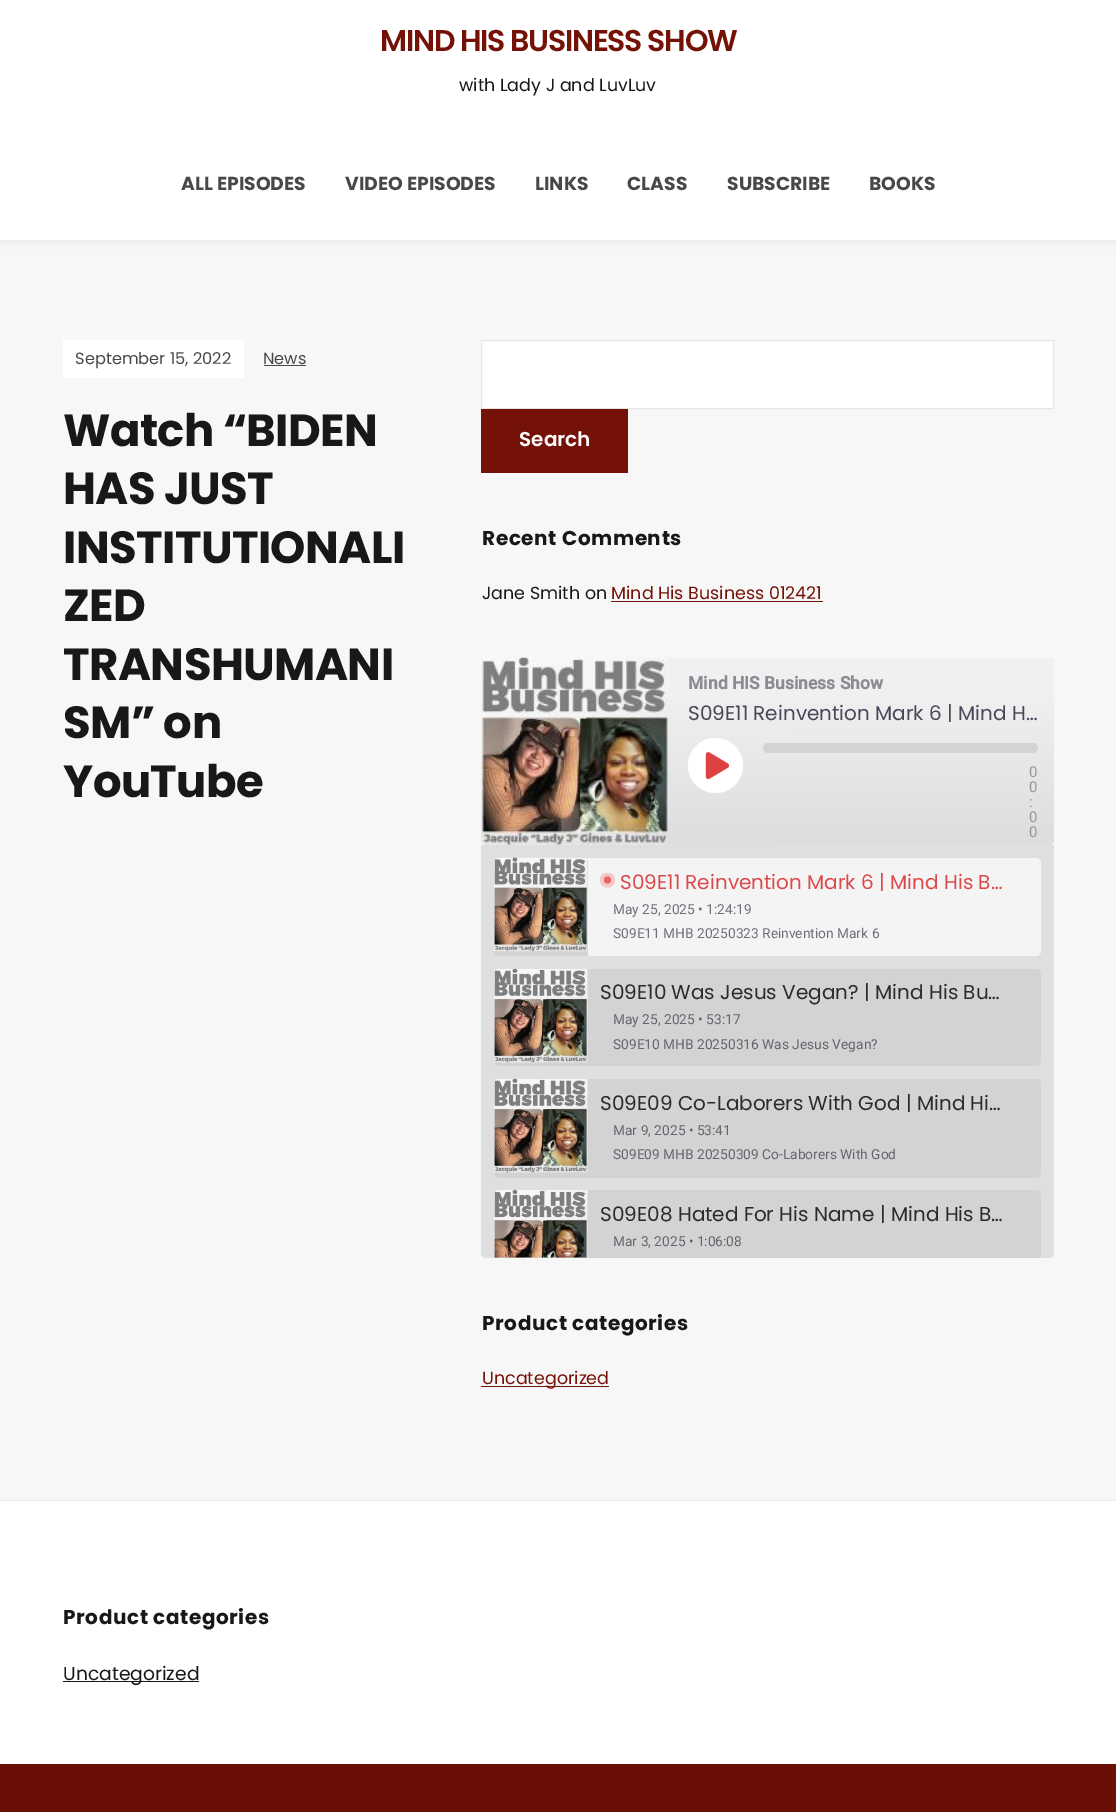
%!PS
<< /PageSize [1116 1812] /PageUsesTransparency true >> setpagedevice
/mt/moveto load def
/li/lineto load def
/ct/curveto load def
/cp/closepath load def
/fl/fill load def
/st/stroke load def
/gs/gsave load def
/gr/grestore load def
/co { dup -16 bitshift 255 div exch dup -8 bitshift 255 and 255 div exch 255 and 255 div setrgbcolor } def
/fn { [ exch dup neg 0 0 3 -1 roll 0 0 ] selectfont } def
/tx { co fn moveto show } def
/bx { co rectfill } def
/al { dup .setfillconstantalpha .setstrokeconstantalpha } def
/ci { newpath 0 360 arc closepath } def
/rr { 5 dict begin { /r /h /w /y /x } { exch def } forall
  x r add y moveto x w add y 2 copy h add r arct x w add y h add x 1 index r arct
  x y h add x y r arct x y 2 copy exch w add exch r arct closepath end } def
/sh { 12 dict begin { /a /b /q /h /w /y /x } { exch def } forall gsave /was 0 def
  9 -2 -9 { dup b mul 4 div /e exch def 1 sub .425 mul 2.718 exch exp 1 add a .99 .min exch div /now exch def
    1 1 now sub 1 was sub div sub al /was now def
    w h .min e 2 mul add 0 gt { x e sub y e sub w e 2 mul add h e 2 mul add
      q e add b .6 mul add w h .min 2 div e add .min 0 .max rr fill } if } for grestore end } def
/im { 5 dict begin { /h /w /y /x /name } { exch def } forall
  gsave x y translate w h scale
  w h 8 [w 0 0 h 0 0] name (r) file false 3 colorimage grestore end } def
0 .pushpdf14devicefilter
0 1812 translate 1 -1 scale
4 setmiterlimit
0 0 1116 1812 16#F7F7F7 bx
16#000000 co
0 0 1116 240 0 5 .07 sh
0 0 1116 240 16#FFFFFF bx
63 340 181 38 16#FFFFFF bx
264 365 42 1 16#484848 bx
16#FFFFFF co
481.5 340.5 mt 1053.5 340.5 li 1053.5 408.5 li 481.5 408.5 li cp gs fl gr
16#E6E6E6 co
st
481 409 147 64 16#751207 bx
611 601 212 1 16#751207 bx
gs 481 658 573 187 5 rr clip newpath
<< /ShadingType 2 /ColorSpace /DeviceRGB /Coords [768 847 767 656] /Extend [true true] /Function << /FunctionType 3 /Domain [0 1] /Functions [<< /FunctionType 2 /Domain [0 1] /C0 [.867 .867 .867] /C1 [.867 .867 .867] /N 1 >> << /FunctionType 2 /Domain [0 1] /C0 [.867 .867 .867] /C1 [.941 .941 .941] /N 1 >> << /FunctionType 2 /Domain [0 1] /C0 [.941 .941 .941] /C1 [.941 .941 .941] /N 1 >>] /Bounds [.01 .78] /Encode [0 1 0 1 0 1] >> >> shfill gr
(media/1.raw) 481 657 188 188 im
16#FFFFFF co
715.5 765.5 27.5 ci fl
(media/2.raw) 705 752 25 28 im
16#D3D3D3 co
763 743 275 10 5 rr fl
16#DFDFDF co
481 845 mt 1054 845 li 1054 1253 li 1054 1256 1052 1258 1049 1258 ct 486 1258 li 483 1258 481 1256 481 1253 ct cp fl
16#D3D3D3 co
494 858 547 98 5 rr fl
(media/3.raw) 494 857 94 95 im
16#F4F4F4 co
588 858 mt 1036 858 li 1039 858 1041 860 1041 863 ct 1041 951 li 1041 954 1039 956 1036 956 ct 588 956 li cp fl
gs
600 873 15 15 rectclip
16#F1C9C9 co
607.5 880 7.5 ci fl
gr
16#E96565 co
607.5 880 3.5 ci fl
16#D3D3D3 co
494 969 547 97 5 rr fl
(media/4.raw) 494 968 94 95 im
494 1079 547 99 5 rr fl
(media/5.raw) 494 1078 94 95 im
499 1190 mt 1036 1190 li 1039 1190 1041 1192 1041 1195 ct 1041 1258 li 494 1258 li 494 1195 li 494 1192 496 1190 499 1190 ct cp fl
(media/6.raw) 494 1190 94 68 im
481 1386 128 1 16#751207 bx
0 1501 1116 263 16#FFFFFF bx
0 1500 1116 1 16#EBEBEB bx
63 1681 136 1 16#181818 bx
0 1764 1116 48 16#690F05 bx
/Poppins-SemiBold 30 fn
16#751207 co
380 51 mt -1.25 0 (MIND HIS BUSINESS SHOW) ashow
(with Lady J and LuvLuv) 459 91 /Poppins-Regular 17.5 16#181818 tx
(ALL EPISODES) 181 190 /Poppins-Bold 18.75 16#484848 tx
(VIDEO EPISODES) 345 190 /Poppins-Bold 18.75 16#484848 tx
(LINKS) 535 190 /Poppins-Bold 18.75 16#484848 tx
(CLASS) 627 190 /Poppins-Bold 18.75 16#484848 tx
(SUBSCRIBE) 727 190 /Poppins-Bold 18.75 16#484848 tx
(BOOKS) 869 190 /Poppins-Bold 18.75 16#484848 tx
(September 15, 2022) 75 364 /Poppins-Regular 16.25 16#484848 tx
(News) 263 364 /Poppins-Regular 16.25 16#484848 tx
/Poppins-Bold 45 fn
16#181818 co
63 446 mt -.6 0 (Watch “BIDEN) ashow
63 504 mt -.6 0 (HAS JUST) ashow
63 563 mt -.6 0 (INSTITUTIONALI) ashow
63 621 mt -.6 0 (ZED) ashow
63 680 mt -.6 0 (TRANSHUMANI) ashow
63 738 mt -.6 0 (SM” on) ashow
63 797 mt -.6 0 (YouTube) ashow
(Search) 519 446 /Poppins-SemiBold 20 16#FFFFFF tx
/Poppins-Bold 20 fn
16#181818 co
482 545 mt .6 0 (Recent Comments) ashow
(Jane Smith on) 482 599 /Poppins-Regular 17.5 16#181818 tx
(Mind His Business 012421) 611 599 /Poppins-Regular 17.5 16#751207 tx
(Mind HIS Business Show) 688 689 /Roboto-Bold 17.5 16#8D8A95 tx
(S09E11 Reinvention Mark 6 | Mind H…) 688 720 /Poppins-Regular 20 16#4B4659 tx
(0) 1029 777 /Roboto-Regular 15 16#9996A0 tx
(0) 1029 792 /Roboto-Regular 15 16#9996A0 tx
(:) 1029 807 /Roboto-Regular 15 16#9996A0 tx
(0) 1029 822 /Roboto-Regular 15 16#9996A0 tx
(0) 1029 837 /Roboto-Regular 15 16#9996A0 tx
(S09E11 Reinvention Mark 6 | Mind His B…) 620 889 /Poppins-Regular 20 16#DA4A4B tx
(May 25, 2025 • 1:24:19) 613 914 /Roboto-Regular 13.75 16#706D79 tx
(S09E11 MHB 20250323 Reinvention Mark 6) 613 938 /Roboto-Regular 13.75 16#706D79 tx
(S09E10 Was Jesus Vegan? | Mind His Bu…) 600 999 /Poppins-Regular 20 16#2B2B2B tx
(May 25, 2025 • 53:17) 613 1024 /Roboto-Regular 13.75 16#67636F tx
(S09E10 MHB 20250316 Was Jesus Vegan?) 613 1049 /Roboto-Regular 13.75 16#67636F tx
(S09E09 Co-Laborers With God | Mind Hi…) 600 1110 /Poppins-Regular 20 16#2B2B2B tx
(Mar 9, 2025 • 53:41) 613 1135 /Roboto-Regular 13.75 16#67636F tx
(S09E09 MHB 20250309 Co-Laborers With God) 613 1159 /Roboto-Regular 13.75 16#67636F tx
(S09E08 Hated For His Name | Mind His B…) 600 1221 /Poppins-Regular 20 16#2B2B2B tx
(Mar 3, 2025 • 1:06:08) 613 1246 /Roboto-Regular 13.75 16#67636F tx
/Poppins-Bold 20 fn
16#181818 co
482 1330 mt .6 0 (Product categories) ashow
(Uncategorized) 482 1384 /Poppins-Regular 17.5 16#751207 tx
/Poppins-Bold 20 fn
16#181818 co
63 1624 mt .6 0 (Product categories) ashow
(Uncategorized) 63 1680 /Poppins-Regular 18.75 16#181818 tx
.poppdf14devicefilter showpage
